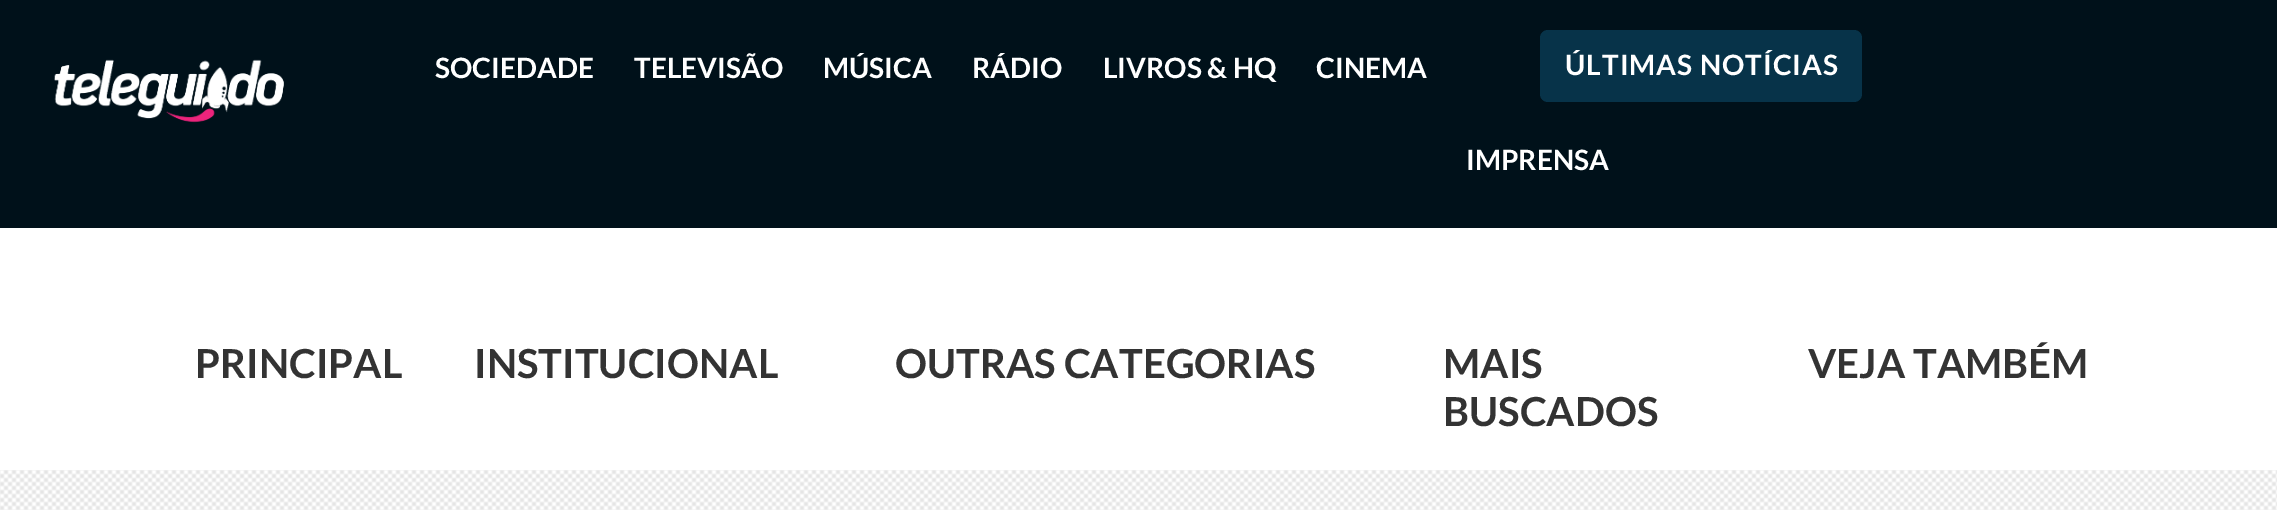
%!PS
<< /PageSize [2277 510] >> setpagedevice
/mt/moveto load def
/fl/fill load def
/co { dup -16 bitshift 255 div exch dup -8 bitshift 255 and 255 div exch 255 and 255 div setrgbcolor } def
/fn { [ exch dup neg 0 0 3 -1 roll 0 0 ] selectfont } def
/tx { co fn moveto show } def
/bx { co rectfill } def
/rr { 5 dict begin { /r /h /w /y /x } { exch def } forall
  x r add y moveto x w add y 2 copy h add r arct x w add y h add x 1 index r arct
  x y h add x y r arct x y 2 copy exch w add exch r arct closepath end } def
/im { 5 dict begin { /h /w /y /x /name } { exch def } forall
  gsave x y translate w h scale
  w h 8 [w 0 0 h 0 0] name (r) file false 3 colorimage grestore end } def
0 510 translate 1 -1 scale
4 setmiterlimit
0 0 2277 510 16#FFFFFF bx
0 0 2277 228 16#00111A bx
(media/1.raw) 54 59 230 64 im
16#073349 co
1540 30 322 72 8 rr fl
(media/2.raw) 0 470 2277 40 im
(SOCIEDADE) 435 78 /Lato-Bold 28 16#FFFFFF tx
(TELEVISÃO) 634 78 /Lato-Bold 28 16#FFFFFF tx
(MÚSICA) 823 78 /Lato-Bold 28 16#FFFFFF tx
(RÁDIO) 972 78 /Lato-Bold 28 16#FFFFFF tx
(LIVROS & HQ) 1103 78 /Lato-Bold 28 16#FFFFFF tx
(CINEMA) 1316 78 /Lato-Bold 28 16#FFFFFF tx
(IMPRENSA) 1466 170 /Lato-Bold 28 16#FFFFFF tx
1565 75 mt 1 0 (ÚLTIMAS NOTÍCIAS) ashow
(PRINCIPAL) 195 378 /Lato-Bold 40 16#333333 tx
(INSTITUCIONAL) 474 378 /Lato-Bold 40 16#333333 tx
(OUTRAS CATEGORIAS) 895 378 /Lato-Bold 40 16#333333 tx
(MAIS) 1443 378 /Lato-Bold 40 16#333333 tx
(BUSCADOS) 1443 426 /Lato-Bold 40 16#333333 tx
(VEJA TAMBÉM) 1808 378 /Lato-Bold 40 16#333333 tx
showpage
